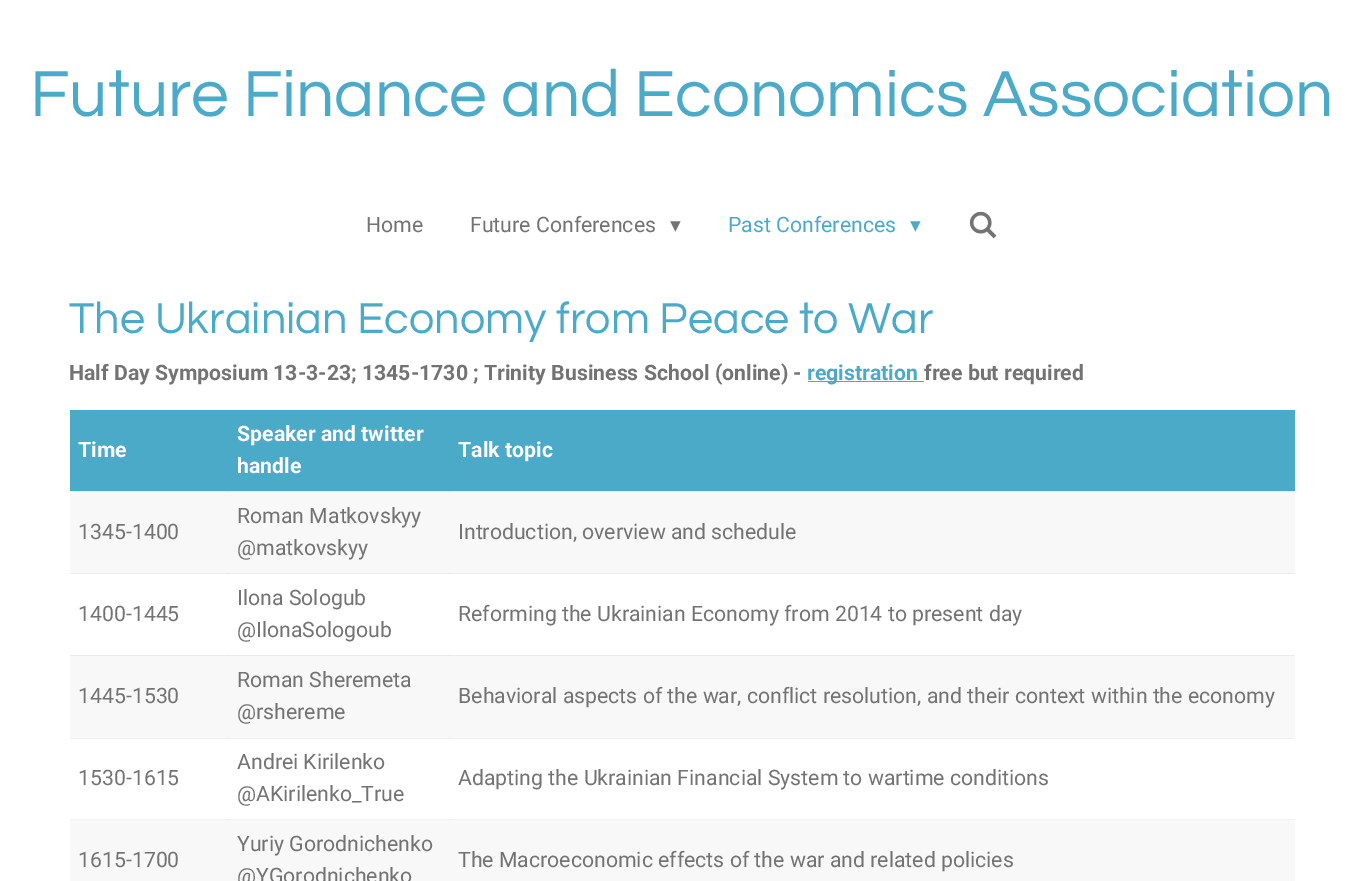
%!PS
<< /PageSize [1363 881] >> setpagedevice
/co { dup -16 bitshift 255 div exch dup -8 bitshift 255 and 255 div exch 255 and 255 div setrgbcolor } def
/fn { [ exch dup neg 0 0 3 -1 roll 0 0 ] selectfont } def
/tx { co fn moveto show } def
/bx { co rectfill } def
/im { 5 dict begin { /h /w /y /x /name } { exch def } forall
  gsave x y translate w h scale
  w h 8 [w 0 0 h 0 0] name (r) file false 3 colorimage grestore end } def
0 881 translate 1 -1 scale
4 setmiterlimit
0 0 1363 881 16#FFFFFF bx
70 738 1225 1 16#F1F1F1 bx
228 738 1 1 16#E4E4E4 bx
70 819 1225 1 16#F1F1F1 bx
228 819 1 1 16#E4E4E4 bx
(media/1.raw) 969 211 28 28 im
808 381 116 1 16#4CAAC9 bx
70 410 1225 81 16#4CAAC9 bx
70 492 1225 81 16#F8F8F8 bx
70 491 1225 1 16#EBEBEB bx
228 491 1 1 16#DFDFDF bx
70 573 1225 1 16#EBEBEB bx
228 573 1 1 16#DFDFDF bx
449 491 1 1 16#DFDFDF bx
449 573 1 1 16#DFDFDF bx
70 656 1225 82 16#F8F8F8 bx
70 655 1225 1 16#EBEBEB bx
228 655 1 1 16#DFDFDF bx
449 655 1 1 16#DFDFDF bx
449 738 1 1 16#E4E4E4 bx
70 820 1225 61 16#F8F8F8 bx
449 819 1 1 16#E4E4E4 bx
(Future Finance and Economics Association) 30 116 /Questrial-Regular 67.5 16#4CAAC9 tx
(Home) 366 232 /Roboto-Regular 21.25 16#737373 tx
(Future Conferences) 470 232 /Roboto-Regular 21.25 16#737373 tx
(▾) 670 232 /DejaVuSans-Regular 21.25 16#737373 tx
(Past Conferences) 728 232 /Roboto-Regular 21.25 16#4CAAC9 tx
(▾) 910 232 /DejaVuSans-Regular 21.25 16#4CAAC9 tx
(The Ukrainian Economy from Peace to War) 69 333 /Questrial-Regular 45 16#4CAAC9 tx
(Half Day Symposium 13-3-23; 1345-1730 ; Trinity Business School \(online\) -) 69 380 /Roboto-Bold 21.25 16#737373 tx
(registration) 807 380 /Roboto-Bold 21.25 16#4CAAC9 tx
(free but required) 924 380 /Roboto-Bold 21.25 16#737373 tx
(Time) 78 457 /Roboto-Bold 21.25 16#FFFFFF tx
(Speaker and twitter) 237 441 /Roboto-Bold 21.25 16#FFFFFF tx
(handle) 237 473 /Roboto-Bold 21.25 16#FFFFFF tx
(Talk topic) 458 457 /Roboto-Bold 21.25 16#FFFFFF tx
(1345-1400) 78 539 /Roboto-Regular 21.25 16#737373 tx
(Roman Matkovskyy) 237 523 /Roboto-Regular 21.25 16#737373 tx
(@matkovskyy) 237 555 /Roboto-Regular 21.25 16#737373 tx
(Introduction, overview and schedule) 458 539 /Roboto-Regular 21.25 16#737373 tx
(1400-1445) 78 621 /Roboto-Regular 21.25 16#737373 tx
(Ilona Sologub) 237 605 /Roboto-Regular 21.25 16#737373 tx
(@IlonaSologoub) 237 637 /Roboto-Regular 21.25 16#737373 tx
(Reforming the Ukrainian Economy from 2014 to present day) 458 621 /Roboto-Regular 21.25 16#737373 tx
(1445-1530) 78 703 /Roboto-Regular 21.25 16#737373 tx
(Roman Sheremeta) 237 687 /Roboto-Regular 21.25 16#737373 tx
(@rshereme) 237 719 /Roboto-Regular 21.25 16#737373 tx
(Behavioral aspects of the war, conflict resolution, and their context within the economy) 458 703 /Roboto-Regular 21.25 16#737373 tx
(1530-1615) 78 785 /Roboto-Regular 21.25 16#737373 tx
(Andrei Kirilenko) 237 769 /Roboto-Regular 21.25 16#737373 tx
(@AKirilenko_True) 237 801 /Roboto-Regular 21.25 16#737373 tx
(Adapting the Ukrainian Financial System to wartime conditions) 458 785 /Roboto-Regular 21.25 16#737373 tx
(1615-1700) 78 867 /Roboto-Regular 21.25 16#737373 tx
(Yuriy Gorodnichenko) 237 851 /Roboto-Regular 21.25 16#737373 tx
(@YGorodnichenko) 237 883 /Roboto-Regular 21.25 16#737373 tx
(The Macroeconomic effects of the war and related policies) 458 867 /Roboto-Regular 21.25 16#737373 tx
showpage
